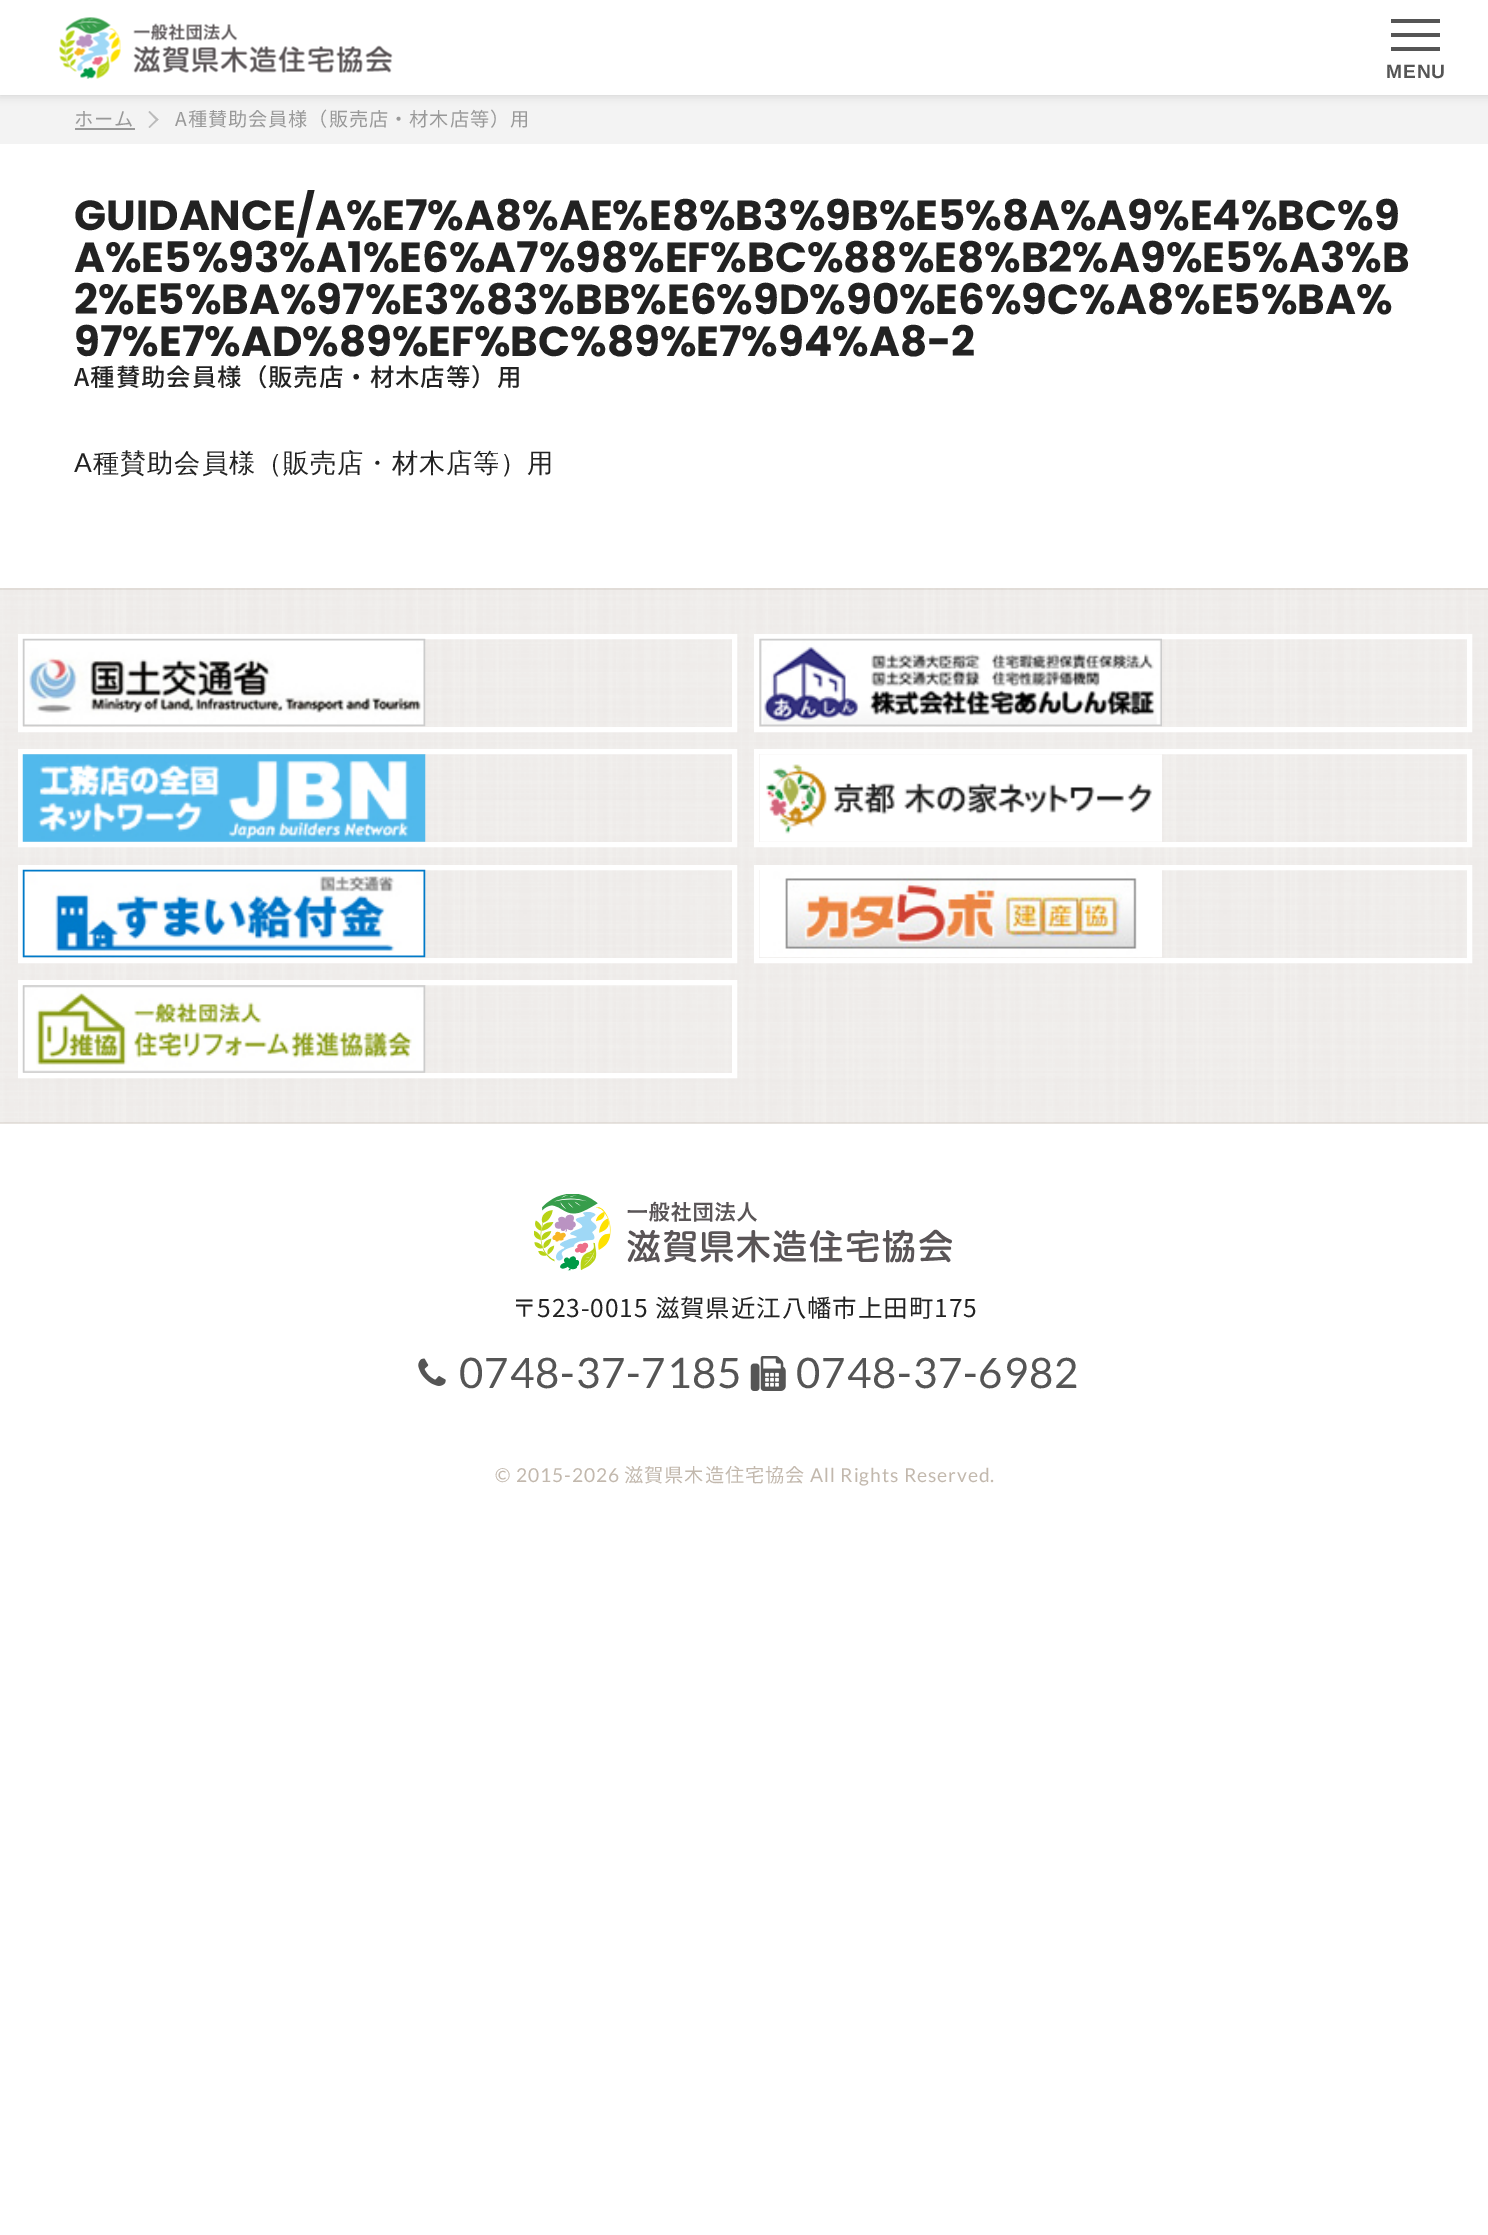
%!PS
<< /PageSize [1488 2235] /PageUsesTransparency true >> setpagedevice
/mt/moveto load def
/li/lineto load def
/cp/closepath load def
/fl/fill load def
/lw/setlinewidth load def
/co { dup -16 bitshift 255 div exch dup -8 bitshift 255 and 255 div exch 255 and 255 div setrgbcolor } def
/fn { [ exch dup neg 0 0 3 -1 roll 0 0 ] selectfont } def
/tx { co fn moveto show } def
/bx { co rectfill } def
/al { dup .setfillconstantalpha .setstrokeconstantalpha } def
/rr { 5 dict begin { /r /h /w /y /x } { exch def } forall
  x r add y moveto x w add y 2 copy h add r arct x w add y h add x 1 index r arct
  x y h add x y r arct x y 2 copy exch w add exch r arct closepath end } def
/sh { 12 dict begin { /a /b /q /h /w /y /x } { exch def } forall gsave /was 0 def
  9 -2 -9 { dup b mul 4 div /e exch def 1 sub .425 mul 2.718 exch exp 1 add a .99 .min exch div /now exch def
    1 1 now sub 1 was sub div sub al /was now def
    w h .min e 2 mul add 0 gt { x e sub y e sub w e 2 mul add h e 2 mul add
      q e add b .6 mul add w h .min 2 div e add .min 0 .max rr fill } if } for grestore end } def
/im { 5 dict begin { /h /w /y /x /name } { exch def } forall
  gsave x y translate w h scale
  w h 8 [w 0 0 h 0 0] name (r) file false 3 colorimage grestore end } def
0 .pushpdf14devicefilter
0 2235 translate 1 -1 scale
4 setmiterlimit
0 0 1488 2235 16#FFFFFF bx
0 95 1488 49 16#F3F3F3 bx
16#000000 co
0 0 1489 95 0 5 .15 sh
0 0 1488 95 16#FFFFFF bx
(media/1.raw) 59 17 334 62 im
1391 19 49 4 16#555555 bx
1391 47 49 4 16#555555 bx
1391 33 49 4 16#555555 bx
75 128 60 2 16#999999 bx
16#BBBBBB co
149.5 111 mt 158.5 119.5 li 157 121 li 148.5 112 li cp fl
157 118.5 mt 158.5 119.5 li 149.5 128 li 148.5 127 li cp fl
(media/2.raw) 0 588 1488 536 im
0.3 al
0 588 1488 2 16#C2B8AD bx
0 1122 1488 2 16#C2B8AD bx
1 al
16#FFFFFF co
5 lw
20.5 636.5 714 93 rectstroke
(media/3.raw) 22 638 404 89 im
756.5 636.5 713 93 rectstroke
(media/4.raw) 759 638 403 89 im
20.5 751.5 714 93 rectstroke
(media/5.raw) 22 754 404 88 im
756.5 751.5 713 93 rectstroke
(media/6.raw) 759 754 403 88 im
20.5 867.5 714 93 rectstroke
(media/7.raw) 22 869 404 89 im
756.5 867.5 713 93 rectstroke
(media/8.raw) 759 870 403 88 im
20.5 982.5 714 93 rectstroke
(media/9.raw) 22 985 404 88 im
(media/10.raw) 534 1194 418 77 im
(media/11.raw) 418 1358 28 28 im
(media/12.raw) 750 1356 36 35 im
/LiberationSans-Bold 19.25 fn
16#555555 co
1386 78 mt .9 0 (MENU) ashow
/NotoSansJP-Regular 19.25 fn
16#999999 co
74 126 mt .9 0 (ホーム) ashow
175 126 mt .9 0 (A種賛助会員様（販売店・材木店等）用) ashow
(GUIDANCE/A%E7%A8%AE%E8%B3%9B%E5%8A%A9%E4%BC%9) 74 230 /Poppins-Bold 42 16#222222 tx
(A%E5%93%A1%E6%A7%98%EF%BC%88%E8%B2%A9%E5%A3%B) 74 272 /Poppins-Bold 42 16#222222 tx
(2%E5%BA%97%E3%83%BB%E6%9D%90%E6%9C%A8%E5%BA%) 74 314 /Poppins-Bold 42 16#222222 tx
(97%E7%AD%89%EF%BC%89%E7%94%A8-2) 74 356 /Poppins-Bold 42 16#222222 tx
/NotoSansJP-Medium 24.5 fn
74 386 mt .9 0 (A種賛助会員様（販売店・材木店等）用) ashow
/Lato-Regular 26.25 fn
74 472 mt .9 0 (A) ashow
/WenQuanYiZenHei-Medium 26.25 fn
93 472 mt .9 0 (種賛助会員様（販売店・材木店等）用) ashow
/NotoSansJP-Regular 24.5 fn
512 1317 mt .9 0 (〒523-0015 滋賀県近江八幡市上田町175) ashow
/Lato-Regular 42 fn
16#555555 co
459 1388 mt .9 0 (0748-37-7185) ashow
796 1388 mt .9 0 (0748-37-6982) ashow
/Lato-Regular 19.25 fn
16#C2B8AD co
495 1482 mt .9 0 (© 2015-2026) ashow
/NotoSansJP-Regular 19.25 fn
624 1482 mt .9 0 (滋賀県木造住宅協会) ashow
/Lato-Regular 19.25 fn
810 1482 mt .9 0 (All Rights Reserved.) ashow
.poppdf14devicefilter showpage
